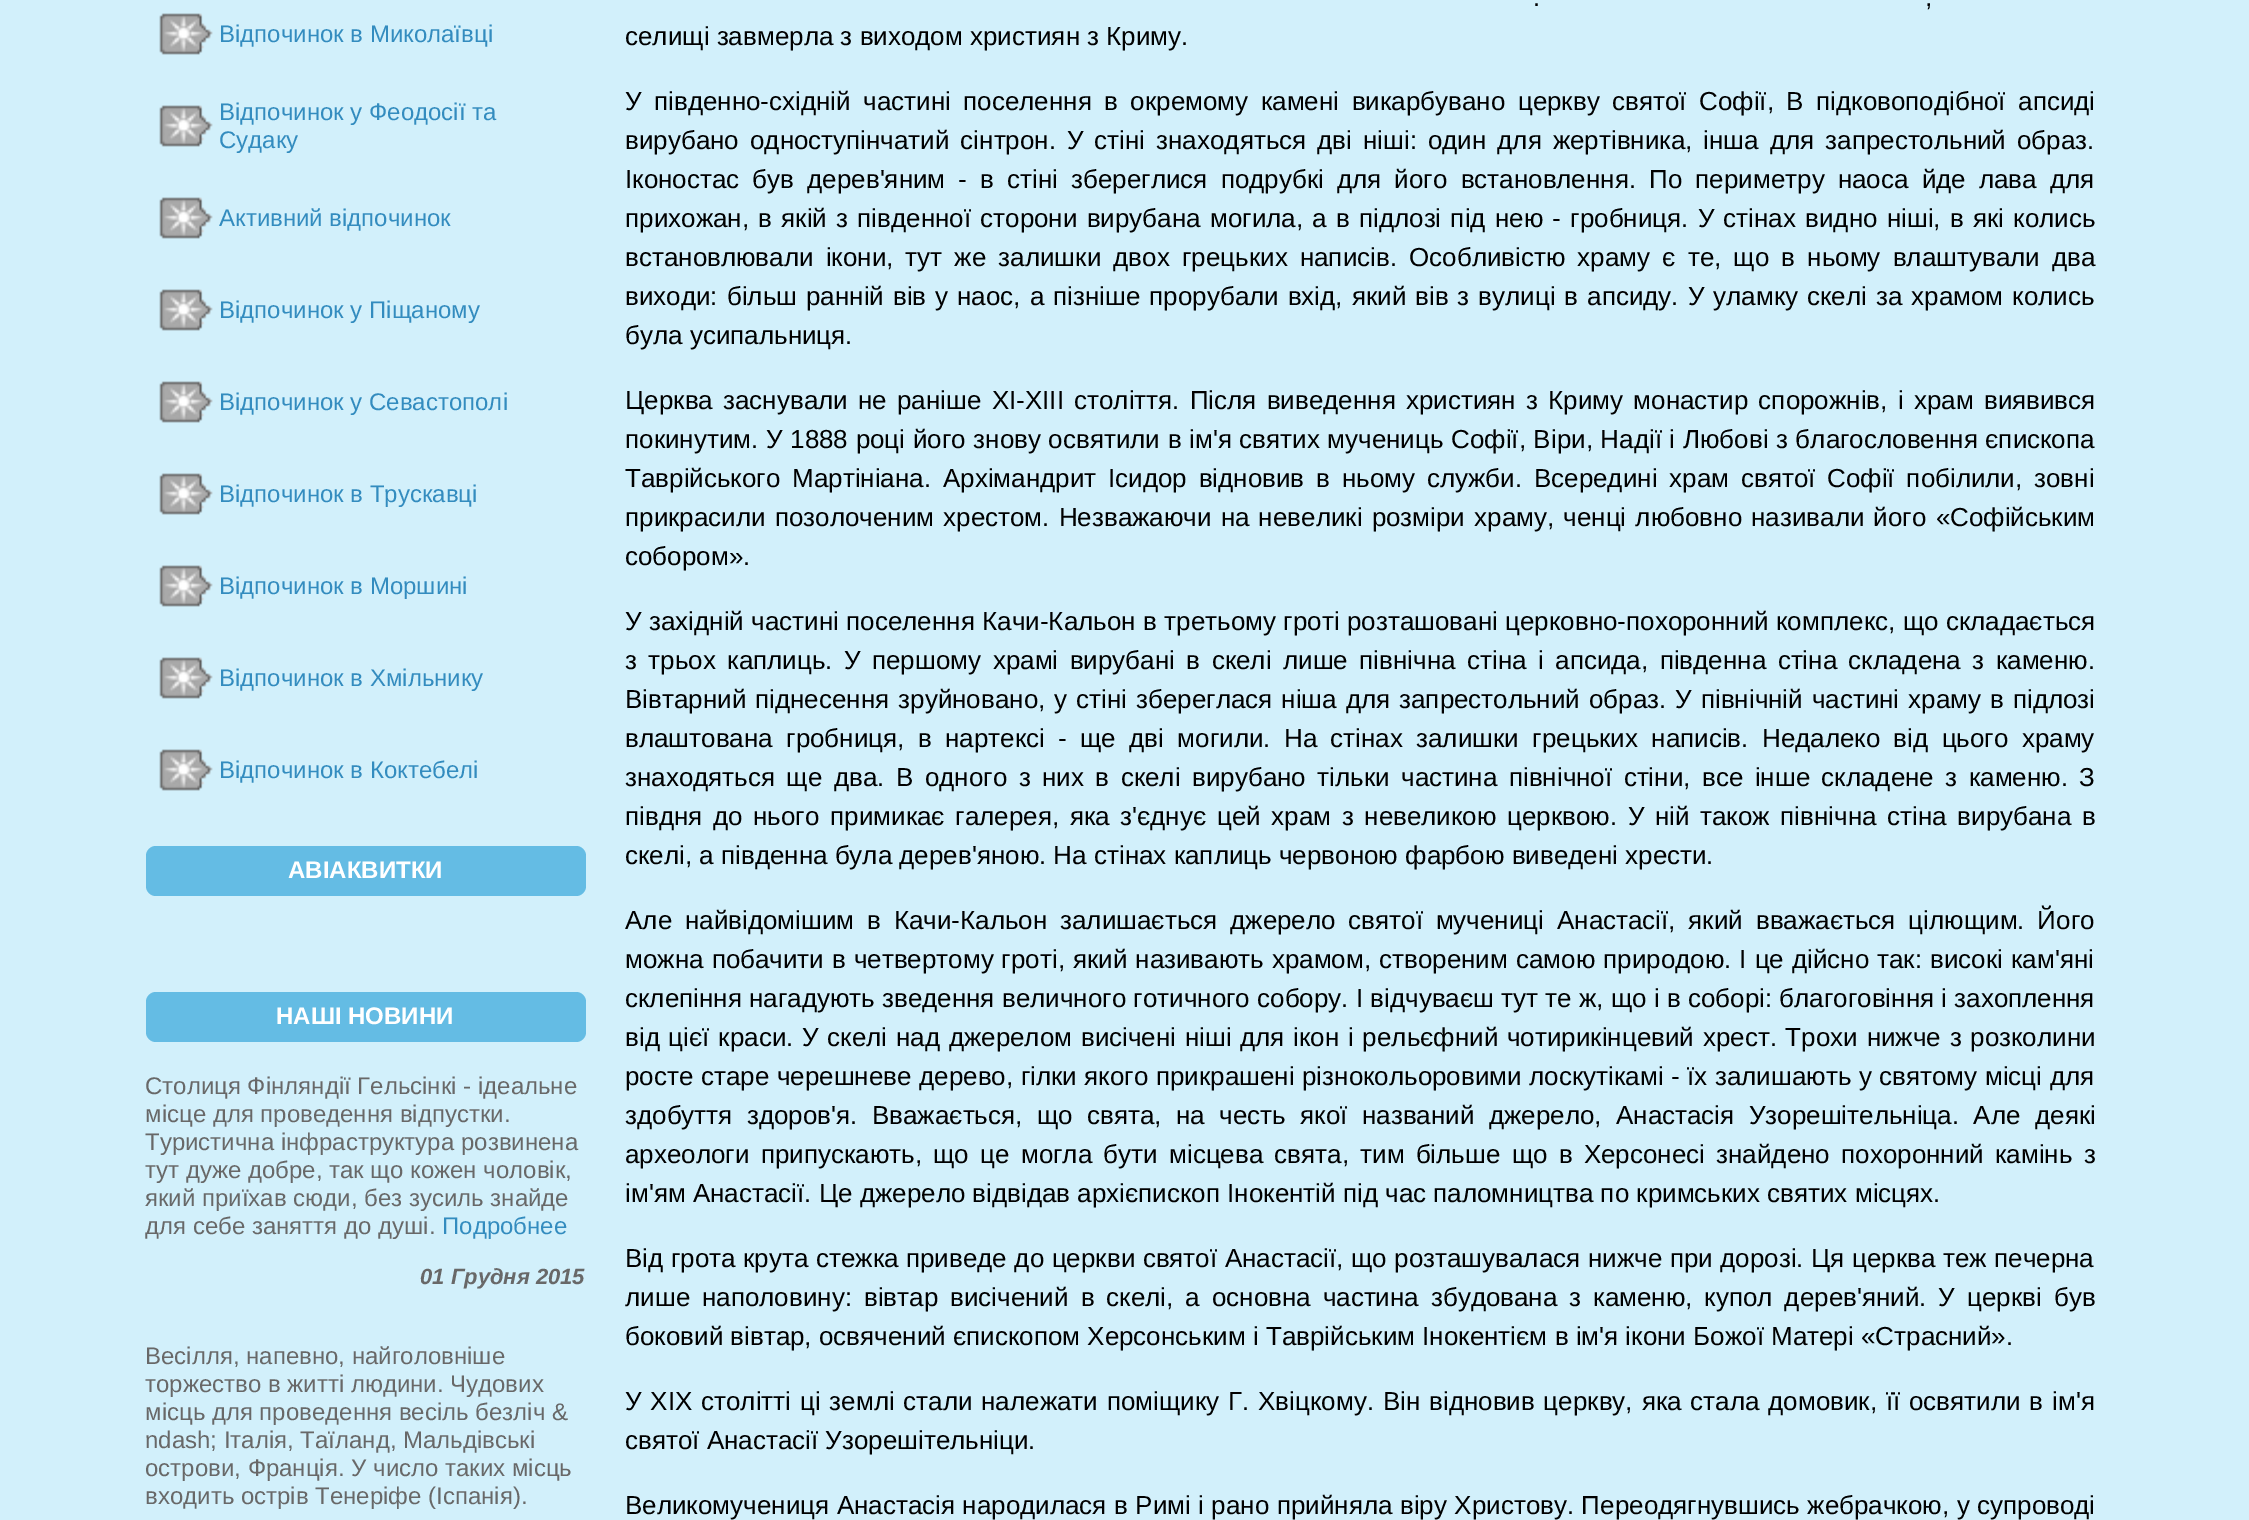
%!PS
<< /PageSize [2249 1520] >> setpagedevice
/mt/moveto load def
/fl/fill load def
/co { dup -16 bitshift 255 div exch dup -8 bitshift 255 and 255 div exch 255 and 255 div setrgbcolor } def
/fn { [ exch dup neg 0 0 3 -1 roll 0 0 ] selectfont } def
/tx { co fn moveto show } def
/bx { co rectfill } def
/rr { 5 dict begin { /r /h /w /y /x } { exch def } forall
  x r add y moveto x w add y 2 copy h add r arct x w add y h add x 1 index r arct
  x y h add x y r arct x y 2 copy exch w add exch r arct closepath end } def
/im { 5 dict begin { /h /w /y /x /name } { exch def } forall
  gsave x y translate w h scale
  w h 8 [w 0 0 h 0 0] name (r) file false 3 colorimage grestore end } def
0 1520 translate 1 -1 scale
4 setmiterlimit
0 0 2249 1520 16#D2F0FB bx
(media/1.raw) 159 13 54 42 im
(media/1.raw) 159 105 54 42 im
(media/1.raw) 159 197 54 42 im
(media/1.raw) 159 289 54 42 im
(media/1.raw) 159 381 54 42 im
(media/1.raw) 159 473 54 42 im
(media/1.raw) 159 565 54 42 im
(media/1.raw) 159 657 54 42 im
(media/1.raw) 159 749 54 42 im
16#64BCE4 co
146 846 440 50 10 rr fl
146 992 440 50 10 rr fl
(Відпочинок в Миколаївці) 219 42 /LiberationSans-Regular 24 16#338CBF tx
(Відпочинок у Феодосії та) 219 120 /LiberationSans-Regular 24 16#338CBF tx
(Судаку) 219 148 /LiberationSans-Regular 24 16#338CBF tx
(Активний відпочинок) 219 226 /LiberationSans-Regular 24 16#338CBF tx
(Відпочинок у Піщаному) 219 318 /LiberationSans-Regular 24 16#338CBF tx
(Відпочинок у Севастополі) 219 410 /LiberationSans-Regular 24 16#338CBF tx
(Відпочинок в Трускавці) 219 502 /LiberationSans-Regular 24 16#338CBF tx
(Відпочинок в Моршині) 219 594 /LiberationSans-Regular 24 16#338CBF tx
(Відпочинок в Хмільнику) 219 686 /LiberationSans-Regular 24 16#338CBF tx
(Відпочинок в Коктебелі) 219 778 /LiberationSans-Regular 24 16#338CBF tx
(АВІАКВИТКИ) 288 878 /LiberationSans-Bold 24 16#FFFFFF tx
(НАШІ НОВИНИ) 276 1024 /LiberationSans-Bold 24 16#FFFFFF tx
(Столиця Фінляндії Гельсінкі - ідеальне) 145 1094 /LiberationSans-Regular 24 16#686868 tx
(місце для проведення відпустки.) 145 1122 /LiberationSans-Regular 24 16#686868 tx
(Туристична інфраструктура розвинена) 145 1150 /LiberationSans-Regular 24 16#686868 tx
(тут дуже добре, так що кожен чоловік,) 145 1178 /LiberationSans-Regular 24 16#686868 tx
(який приїхав сюди, без зусиль знайде) 145 1206 /LiberationSans-Regular 24 16#686868 tx
(для себе заняття до душі.) 145 1234 /LiberationSans-Regular 24 16#686868 tx
(Подробнее) 442 1234 /LiberationSans-Regular 24 16#338CBF tx
(01 Грудня 2015) 420 1284 /LiberationSans-BoldItalic 22 16#686868 tx
(Весілля, напевно, найголовніше) 145 1364 /LiberationSans-Regular 24 16#686868 tx
(торжество в житті людини. Чудових) 145 1392 /LiberationSans-Regular 24 16#686868 tx
(місць для проведення весіль безліч &) 145 1420 /LiberationSans-Regular 24 16#686868 tx
(ndash; Італія, Таїланд, Мальдівські) 145 1448 /LiberationSans-Regular 24 16#686868 tx
(острови, Франція. У число таких місць) 145 1476 /LiberationSans-Regular 24 16#686868 tx
(входить острів Тенеріфе \(Іспанія\).) 145 1504 /LiberationSans-Regular 24 16#686868 tx
/LiberationSans-Regular 26 fn
16#000000 co
1533 6 mt 1 0 32 (.) widthshow
1925 6 mt 1 0 32 (,) widthshow
(селищі завмерла з виходом християн з Криму.) 625 45 /LiberationSans-Regular 26 16#000000 tx
625 110 mt 5.25 0 32 (У південно-східній частині поселення в окремому камені викарбувано церкву святої Софії, В підковоподібної апсиді) widthshow
625 149 mt 3.75 0 32 (вирубано одноступінчатий сінтрон. У стіні знаходяться дві ніші: один для жертівника, інша для запрестольний образ.) widthshow
625 188 mt 5.9 0 32 (Іконостас був дерев'яним - в стіні збереглися подрубкі для його встановлення. По периметру наоса йде лава для) widthshow
625 227 mt 2 0 32 (прихожан, в якій з південної сторони вирубана могила, а в підлозі під нею - гробниця. У стінах видно ніші, в які колись) widthshow
625 266 mt 4.9 0 32 (встановлювали ікони, тут же залишки двох грецьких написів. Особливістю храму є те, що в ньому влаштували два) widthshow
625 305 mt 1.75 0 32 (виходи: більш ранній вів у наос, а пізніше прорубали вхід, який вів з вулиці в апсиду. У уламку скелі за храмом колись) widthshow
(була усипальниця.) 625 344 /LiberationSans-Regular 26 16#000000 tx
625 409 mt 3 0 32 (Церква заснували не раніше XI-XIII століття. Після виведення християн з Криму монастир спорожнів, і храм виявився) widthshow
625 448 mt .4 0 32 (покинутим. У 1888 році його знову освятили в ім'я святих мучениць Софії, Віри, Надії і Любові з благословення єпископа) widthshow
625 487 mt 4.6 0 32 (Таврійського Мартініана. Архімандрит Ісидор відновив в ньому служби. Всередині храм святої Софії побілили, зовні) widthshow
625 526 mt 1.9 0 32 (прикрасили позолоченим хрестом. Незважаючи на невеликі розміри храму, ченці любовно називали його «Софійським) widthshow
(собором».) 625 565 /LiberationSans-Regular 26 16#000000 tx
625 630 mt .2 0 32 (У західній частині поселення Качи-Кальон в третьому гроті розташовані церковно-похоронний комплекс, що складається) widthshow
625 669 mt 4.25 0 32 (з трьох каплиць. У першому храмі вирубані в скелі лише північна стіна і апсида, південна стіна складена з каменю.) widthshow
625 708 mt 1.75 0 32 (Вівтарний піднесення зруйновано, у стіні збереглася ніша для запрестольний образ. У північній частині храму в підлозі) widthshow
625 747 mt 6.1 0 32 (влаштована гробниця, в нартексі - ще дві могили. На стінах залишки грецьких написів. Недалеко від цього храму) widthshow
625 786 mt 4.25 0 32 (знаходяться ще два. В одного з них в скелі вирубано тільки частина північної стіни, все інше складене з каменю. З) widthshow
625 825 mt 3.4 0 32 (півдня до нього примикає галерея, яка з'єднує цей храм з невеликою церквою. У ній також північна стіна вирубана в) widthshow
(скелі, а південна була дерев'яною. На стінах каплиць червоною фарбою виведені хрести.) 625 864 /LiberationSans-Regular 26 16#000000 tx
625 929 mt 5.6 0 32 (Але найвідомішим в Качи-Кальон залишається джерело святої мучениці Анастасії, який вважається цілющим. Його) widthshow
625 968 mt .75 0 32 (можна побачити в четвертому гроті, який називають храмом, створеним самою природою. І це дійсно так: високі кам'яні) widthshow
(склепіння нагадують зведення величного готичного собору. І відчуваєш тут те ж, що і в соборі: благоговіння і захоплення) 625 1007 /LiberationSans-Regular 26 16#000000 tx
625 1046 mt 1.5 0 32 (від цієї краси. У скелі над джерелом висічені ніші для ікон і рельєфний чотирикінцевий хрест. Трохи нижче з розколини) widthshow
625 1085 mt .3 0 32 (росте старе черешневе дерево, гілки якого прикрашені різнокольоровими лоскутікамі - їх залишають у святому місці для) widthshow
625 1124 mt 7.25 0 32 (здобуття здоров'я. Вважається, що свята, на честь якої названий джерело, Анастасія Узорешітельніца. Але деякі) widthshow
625 1163 mt 4 0 32 (археологи припускають, що це могла бути місцева свята, тим більше що в Херсонесі знайдено похоронний камінь з) widthshow
(ім'ям Анастасії. Це джерело відвідав архієпископ Інокентій під час паломництва по кримських святих місцях.) 625 1202 /LiberationSans-Regular 26 16#000000 tx
625 1267 mt .3 0 32 (Від грота крута стежка приведе до церкви святої Анастасії, що розташувалася нижче при дорозі. Ця церква теж печерна) widthshow
625 1306 mt 4.75 0 32 (лише наполовину: вівтар висічений в скелі, а основна частина збудована з каменю, купол дерев'яний. У церкві був) widthshow
(боковий вівтар, освячений єпископом Херсонським і Таврійським Інокентієм в ім'я ікони Божої Матері «Страсний».) 625 1345 /LiberationSans-Regular 26 16#000000 tx
625 1410 mt 1.6 0 32 (У XIX столітті ці землі стали належати поміщику Г. Хвіцкому. Він відновив церкву, яка стала домовик, її освятили в ім'я) widthshow
(святої Анастасії Узорешітельніци.) 625 1449 /LiberationSans-Regular 26 16#000000 tx
625 1514 mt .25 0 32 (Великомучениця Анастасія народилася в Римі і рано прийняла віру Христову. Переодягнувшись жебрачкою, у супроводі) widthshow
showpage
